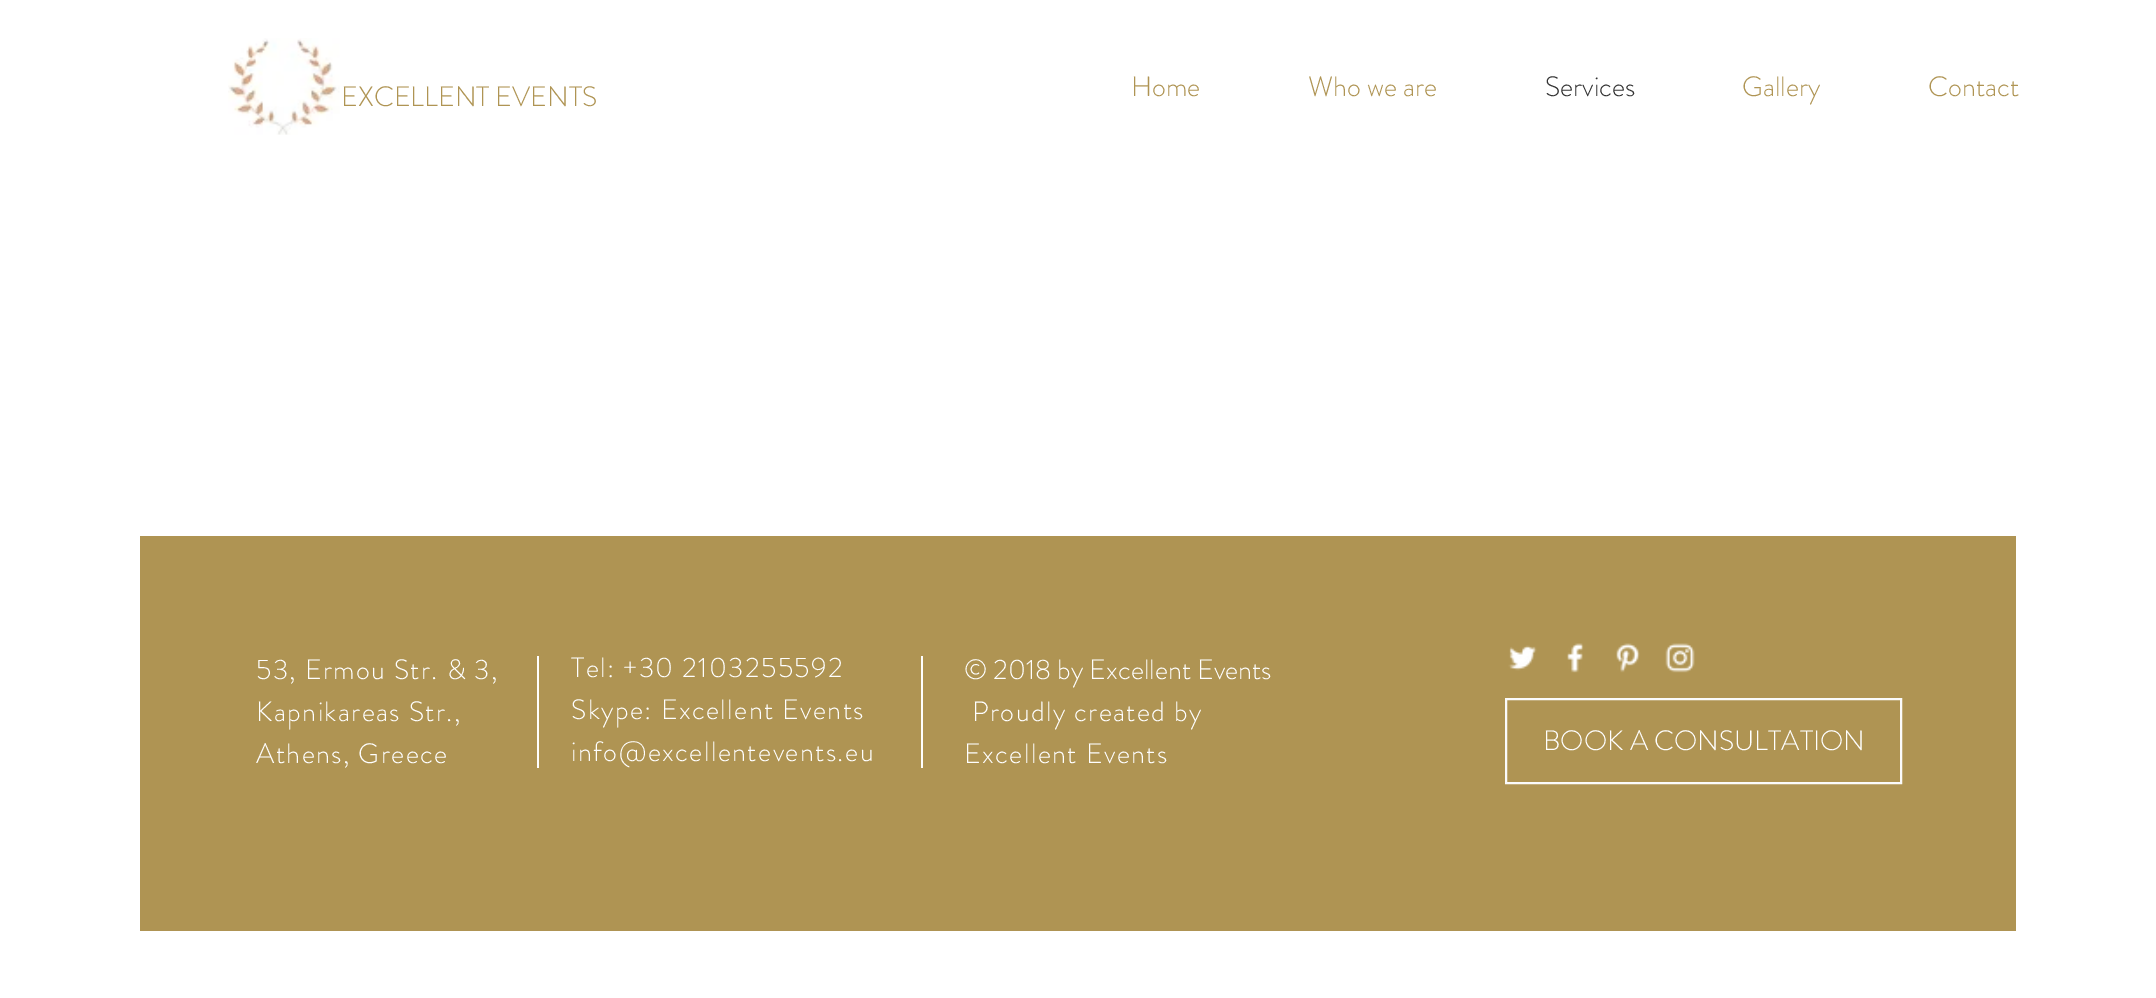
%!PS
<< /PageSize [2156 998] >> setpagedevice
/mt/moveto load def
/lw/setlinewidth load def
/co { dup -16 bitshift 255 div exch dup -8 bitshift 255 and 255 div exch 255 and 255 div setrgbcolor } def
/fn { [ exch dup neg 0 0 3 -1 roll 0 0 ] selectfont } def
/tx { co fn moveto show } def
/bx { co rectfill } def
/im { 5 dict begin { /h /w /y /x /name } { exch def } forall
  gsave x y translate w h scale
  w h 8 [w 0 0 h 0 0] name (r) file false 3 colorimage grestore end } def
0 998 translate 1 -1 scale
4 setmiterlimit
0 0 2156 998 16#FFFFFF bx
(media/1.raw) 228 38 112 97 im
140 536 1876 395 16#AF9453 bx
537 656 2 112 16#FFFFFF bx
921 656 2 112 16#FFFFFF bx
(media/2.raw) 1508 645 29 26 im
(media/3.raw) 1567 643 17 30 im
(media/4.raw) 1616 643 24 30 im
(media/5.raw) 1665 643 30 30 im
16#FBFBFB co
2 lw
1506 699 395 84 rectstroke
(EXCELLENT EVENTS) 341 106 /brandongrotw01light-Light 28 16#AF9453 tx
(Home) 1131 96 /brandongrotw01light-Light 28 16#AF9453 tx
(Who we are) 1308 96 /brandongrotw01light-Light 28 16#AF9453 tx
(Services) 1545 96 /brandongrotw01light-Light 28 16#333333 tx
(Gallery) 1742 96 /brandongrotw01light-Light 28 16#AF9453 tx
(Contact) 1928 96 /brandongrotw01light-Light 28 16#AF9453 tx
16#FFFFFF co
256 679 mt 1.4 0 (53, Ermou Str. & 3,) ashow
256 721 mt 1.4 0 (Kapnikareas Str.,) ashow
256 763 mt 1.4 0 (Athens, Greece) ashow
571 677 mt 1.4 0 (Tel: +30 2103255592) ashow
571 719 mt 1.4 0 (Skype: Excellent Events) ashow
571 761 mt 1.4 0 (info@excellentevents.eu) ashow
(© 2018 by Excellent Events) 964 679 /brandongrotw01light-Light 28 16#FFFFFF tx
972 721 mt 1.4 0 (Proudly created by) ashow
964 763 mt 1.4 0 (Excellent Events) ashow
(BOOK A CONSULTATION) 1543 750 /brandongrotw01light-Light 28 16#FFFFFF tx
showpage
